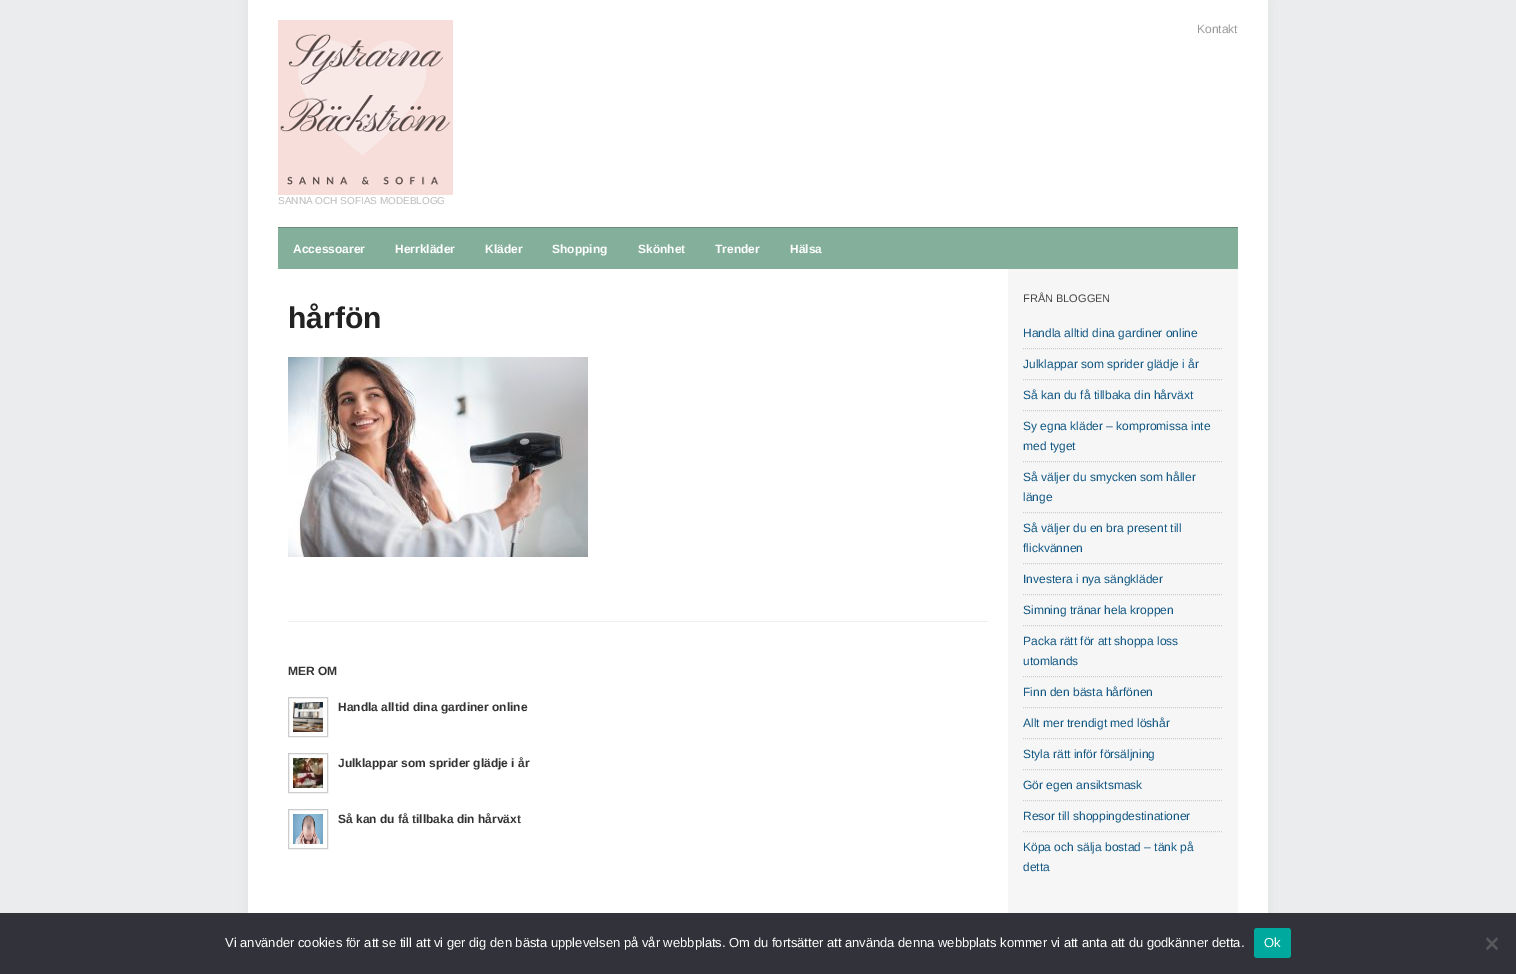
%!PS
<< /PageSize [1516 974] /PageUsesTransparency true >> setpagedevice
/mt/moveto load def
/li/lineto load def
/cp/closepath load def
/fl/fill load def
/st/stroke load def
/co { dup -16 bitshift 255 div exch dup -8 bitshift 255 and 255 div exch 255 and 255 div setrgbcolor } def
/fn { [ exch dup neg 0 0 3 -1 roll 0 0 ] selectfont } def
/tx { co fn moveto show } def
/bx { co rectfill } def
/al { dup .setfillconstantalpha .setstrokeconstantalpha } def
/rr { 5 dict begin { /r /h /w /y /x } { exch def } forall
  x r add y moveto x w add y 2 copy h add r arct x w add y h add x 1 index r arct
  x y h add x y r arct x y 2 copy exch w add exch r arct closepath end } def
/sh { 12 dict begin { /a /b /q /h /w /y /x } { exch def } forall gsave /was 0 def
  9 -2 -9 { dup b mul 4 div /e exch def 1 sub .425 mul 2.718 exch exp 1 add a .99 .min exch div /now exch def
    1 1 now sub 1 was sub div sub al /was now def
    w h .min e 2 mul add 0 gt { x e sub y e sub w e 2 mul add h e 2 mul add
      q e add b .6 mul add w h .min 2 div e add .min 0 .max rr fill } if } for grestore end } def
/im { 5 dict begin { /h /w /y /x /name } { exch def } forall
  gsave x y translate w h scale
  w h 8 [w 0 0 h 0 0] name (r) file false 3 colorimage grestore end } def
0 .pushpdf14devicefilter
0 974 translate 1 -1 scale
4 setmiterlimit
0 0 1516 974 16#EBECEE bx
16#E1E1E1 co
248 0 1020 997 0 7.5 1 sh
248 0 1020 913 16#FFFFFF bx
(media/1.raw) 278 20 175 175 im
278 228 960 41 16#83AF9B bx
278 227 960 1 16#698C7C bx
(media/2.raw) 288 357 300 200 im
288 621 700 1 16#EEEEEE bx
16#CCCCCC co
288.5 697.5 39 39 rectstroke
(media/3.raw) 293 702 30 30 im
288.5 753.5 39 39 rectstroke
(media/4.raw) 293 758 30 30 im
288.5 809.5 39 39 rectstroke
(media/5.raw) 293 814 30 30 im
1008 269 230 644 16#F6F6F6 bx
16#CCCCCC co
[1 1] 0 setdash
1023 348.5 mt 1223 348.5 li st
1023 379.5 mt 1223 379.5 li st
1023 410.5 mt 1223 410.5 li st
1023 461.5 mt 1223 461.5 li st
1023 512.5 mt 1223 512.5 li st
1023 563.5 mt 1223 563.5 li st
1023 594.5 mt 1223 594.5 li st
1023 625.5 mt 1223 625.5 li st
1023 676.5 mt 1223 676.5 li st
1023 707.5 mt 1223 707.5 li st
1023 738.5 mt 1223 738.5 li st
1023 769.5 mt 1223 769.5 li st
1023 800.5 mt 1223 800.5 li st
1023 831.5 mt 1223 831.5 li st
0 913 1516 61 16#32323A bx
16#00A99D co
1254 928 37 30 3 rr fl
16#59595D co
1496.5 937.5 mt 1498 939 li 1487.5 950 li 1486 948.5 li cp fl
1486 939 mt 1487.5 937.5 li 1498 948.5 li 1496.5 950 li cp fl
(Kontakt) 1197 33 /LiberationSans-Regular 12 16#999999 tx
(SANNA OCH SOFIAS MODEBLOGG) 278 204 /LiberationSans-Regular 10 16#BBBBBB tx
(Accessoarer) 293 253 /LiberationSans-Bold 12 16#FFFFFF tx
(Herrkläder) 395 253 /LiberationSans-Bold 12 16#FFFFFF tx
(Kläder) 485 253 /LiberationSans-Bold 12 16#FFFFFF tx
(Shopping) 552 253 /LiberationSans-Bold 12 16#FFFFFF tx
(Skönhet) 638 253 /LiberationSans-Bold 12 16#FFFFFF tx
(Trender) 715 253 /LiberationSans-Bold 12 16#FFFFFF tx
(Hälsa) 790 253 /LiberationSans-Bold 12 16#FFFFFF tx
(hårfön) 288 328 /LiberationSans-Bold 30 16#222222 tx
(MER OM) 288 675 /LiberationSans-Bold 12 16#333333 tx
(Handla alltid dina gardiner online) 338 711 /LiberationSans-Bold 12 16#333333 tx
(Julklappar som sprider glädje i år) 338 767 /LiberationSans-Bold 12 16#333333 tx
(Så kan du få tillbaka din hårväxt) 338 823 /LiberationSans-Bold 12 16#333333 tx
(FRÅN BLOGGEN) 1023 302 /LiberationSans-Regular 11 16#444444 tx
(Handla alltid dina gardiner online) 1023 337 /LiberationSans-Regular 12 16#115782 tx
(Julklappar som sprider glädje i år) 1023 368 /LiberationSans-Regular 12 16#115782 tx
(Så kan du få tillbaka din hårväxt) 1023 399 /LiberationSans-Regular 12 16#115782 tx
(Sy egna kläder – kompromissa inte) 1023 430 /LiberationSans-Regular 12 16#115782 tx
(med tyget) 1023 450 /LiberationSans-Regular 12 16#115782 tx
(Så väljer du smycken som håller) 1023 481 /LiberationSans-Regular 12 16#115782 tx
(länge) 1023 501 /LiberationSans-Regular 12 16#115782 tx
(Så väljer du en bra present till) 1023 532 /LiberationSans-Regular 12 16#115782 tx
(flickvännen) 1023 552 /LiberationSans-Regular 12 16#115782 tx
(Investera i nya sängkläder) 1023 583 /LiberationSans-Regular 12 16#115782 tx
(Simning tränar hela kroppen) 1023 614 /LiberationSans-Regular 12 16#115782 tx
(Packa rätt för att shoppa loss) 1023 645 /LiberationSans-Regular 12 16#115782 tx
(utomlands) 1023 665 /LiberationSans-Regular 12 16#115782 tx
(Finn den bästa hårfönen) 1023 696 /LiberationSans-Regular 12 16#115782 tx
(Allt mer trendigt med löshår) 1023 727 /LiberationSans-Regular 12 16#115782 tx
(Styla rätt inför försäljning) 1023 758 /LiberationSans-Regular 12 16#115782 tx
(Gör egen ansiktsmask) 1023 789 /LiberationSans-Regular 12 16#115782 tx
(Resor till shoppingdestinationer) 1023 820 /LiberationSans-Regular 12 16#115782 tx
(Köpa och sälja bostad – tänk på) 1023 851 /LiberationSans-Regular 12 16#115782 tx
(detta) 1023 871 /LiberationSans-Regular 12 16#115782 tx
(Vi använder cookies för att se till att vi ger dig den bästa upplevelsen på vår webbplats. Om du fortsätter att använda denna webbplats kommer vi att anta att du godkänner detta.) 225 947 /LiberationSans-Regular 13 16#FFFFFF tx
(Ok) 1264 947 /LiberationSans-Regular 13 16#FFFFFF tx
.poppdf14devicefilter showpage
